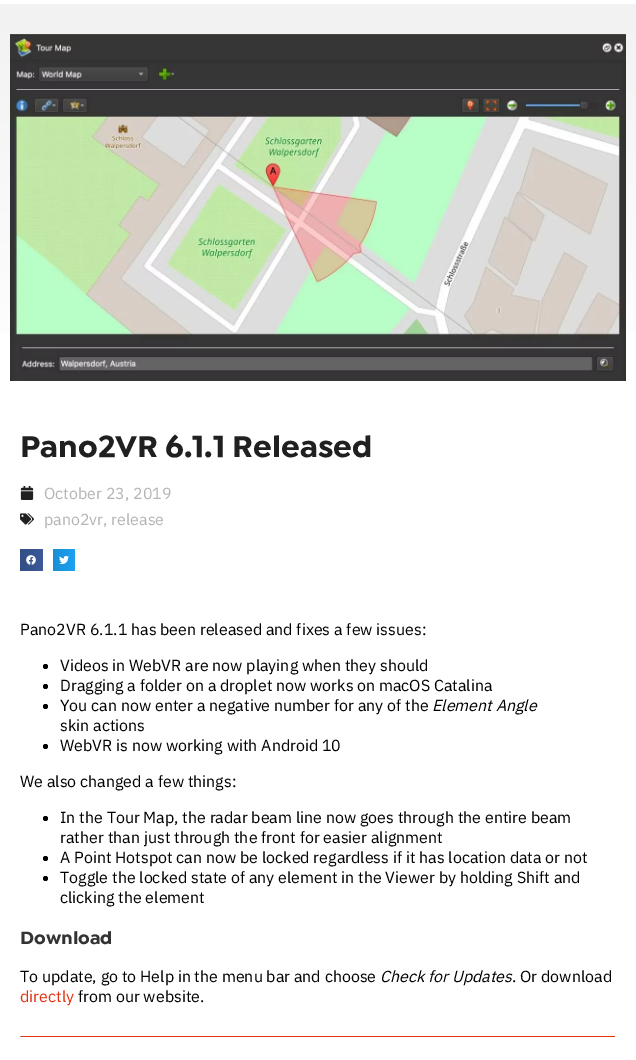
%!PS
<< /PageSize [636 1060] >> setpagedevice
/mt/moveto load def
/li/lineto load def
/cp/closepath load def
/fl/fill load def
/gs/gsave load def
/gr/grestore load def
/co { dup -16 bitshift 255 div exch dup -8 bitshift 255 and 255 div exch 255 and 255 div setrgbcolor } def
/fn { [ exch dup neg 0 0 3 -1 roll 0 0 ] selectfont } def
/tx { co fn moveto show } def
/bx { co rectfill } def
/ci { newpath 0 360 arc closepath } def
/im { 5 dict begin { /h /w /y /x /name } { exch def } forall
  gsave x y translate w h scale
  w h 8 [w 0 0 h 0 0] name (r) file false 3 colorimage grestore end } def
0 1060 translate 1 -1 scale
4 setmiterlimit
0 0 636 1060 16#FFFFFF bx
gs 0 4 mt 636 4 li 636 333 li 0 333 li cp clip newpath
<< /ShadingType 2 /ColorSpace /DeviceRGB /Coords [318 4 318 411] /Extend [true true] /Function << /FunctionType 2 /Domain [0 1] /C0 [.949 .949 .949] /C1 [1 1 1] /N 1 >> >> shfill gr
(media/1.raw) 10 34 616 347 im
(media/2.raw) 20 486 14 14 im
(media/3.raw) 20 513 14 12 im
gs 20 549 mt 43 549 li 43 571 li 20 571 li cp clip newpath
<< /ShadingType 2 /ColorSpace /DeviceRGB /Coords [20 560 43 560] /Extend [true true] /Function << /FunctionType 2 /Domain [0 1] /C0 [.204 .306 .525] /C1 [.231 .349 .596] /N 1 >> >> shfill gr
(media/4.raw) 26 555 10 10 im
gs 53 549 mt 75 549 li 75 571 li 53 571 li cp clip newpath
<< /ShadingType 2 /ColorSpace /DeviceRGB /Coords [53 560 75 560] /Extend [true true] /Function << /FunctionType 2 /Domain [0 1] /C0 [.102 .557 .835] /C1 [.114 .631 .949] /N 1 >> >> shfill gr
(media/5.raw) 59 556 10 9 im
16#000000 co
45.5 666.5 2.5 ci fl
45.5 686.5 2.5 ci fl
45.5 706.5 2.5 ci fl
45.5 746.5 2.5 ci fl
45.5 818.5 2.5 ci fl
45.5 858.5 2.5 ci fl
45.5 878.5 2.5 ci fl
20 1036 596 1 16#E5310E bx
615 1036 1 1 16#EEEEEE bx
20 1036 1 1 16#9F9F9F bx
(Pano2VR 6.1.1 Released) 20 457 /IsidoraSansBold-Regular 32 16#202020 tx
(October 23, 2019) 44 499 /IBMPlexSans-Regular 16 16#B7B4B4 tx
(pano2vr, release) 44 525 /IBMPlexSans-Regular 16 16#B7B4B4 tx
(Pano2VR 6.1.1 has been released and fixes a few issues:) 20 635 /IBMPlexSans-Regular 16 16#000000 tx
(Videos in WebVR are now playing when they should) 60 671 /IBMPlexSans-Regular 16 16#000000 tx
(Dragging a folder on a droplet now works on macOS Catalina) 60 691 /IBMPlexSans-Regular 16 16#000000 tx
(You can now enter a negative number for any of the) 60 711 /IBMPlexSans-Regular 16 16#000000 tx
(Element Angle) 432 711 /IBMPlexSans-Italic 16 16#000000 tx
(skin actions) 60 731 /IBMPlexSans-Regular 16 16#000000 tx
(WebVR is now working with Android 10) 60 751 /IBMPlexSans-Regular 16 16#000000 tx
(We also changed a few things:) 20 787 /IBMPlexSans-Regular 16 16#000000 tx
(In the Tour Map, the radar beam line now goes through the entire beam) 60 823 /IBMPlexSans-Regular 16 16#000000 tx
(rather than just through the front for easier alignment) 60 843 /IBMPlexSans-Regular 16 16#000000 tx
(A Point Hotspot can now be locked regardless if it has location data or not) 60 863 /IBMPlexSans-Regular 16 16#000000 tx
(Toggle the locked state of any element in the Viewer by holding Shift and) 60 883 /IBMPlexSans-Regular 16 16#000000 tx
(clicking the element) 60 903 /IBMPlexSans-Regular 16 16#000000 tx
(Download) 20 944 /IsidoraSansBold-Regular 19 16#333333 tx
(To update, go to Help in the menu bar and choose) 20 982 /IBMPlexSans-Regular 16 16#000000 tx
(Check for Updates) 380 982 /IBMPlexSans-Italic 16 16#000000 tx
(. Or download) 512 982 /IBMPlexSans-Regular 16 16#000000 tx
(directly) 20 1002 /IBMPlexSans-Regular 16 16#E5310E tx
(from our website.) 78 1002 /IBMPlexSans-Regular 16 16#000000 tx
showpage
